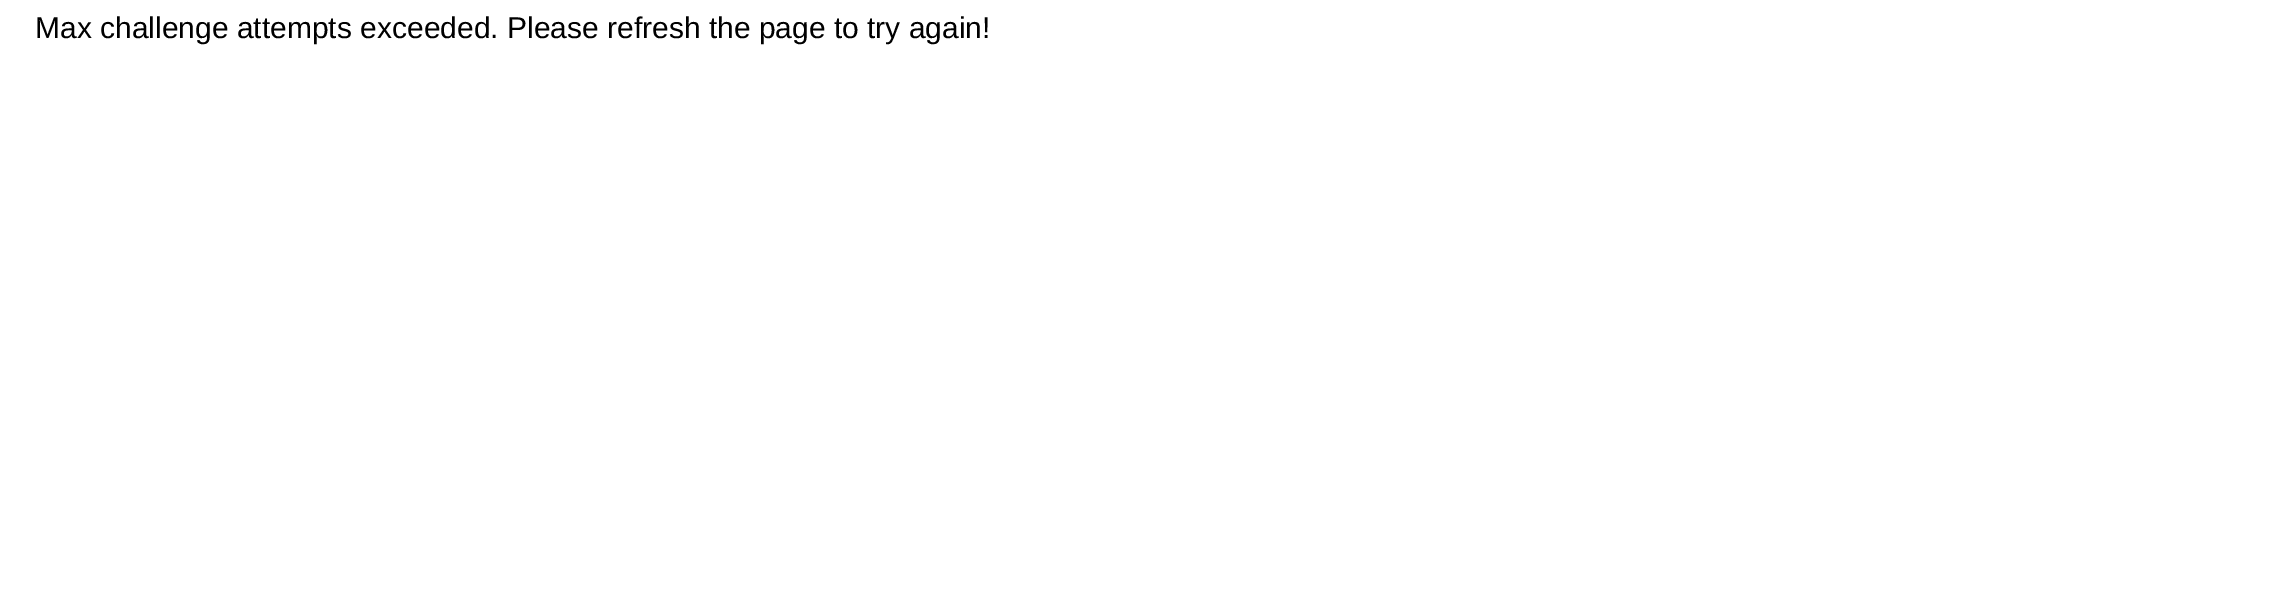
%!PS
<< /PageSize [2293 614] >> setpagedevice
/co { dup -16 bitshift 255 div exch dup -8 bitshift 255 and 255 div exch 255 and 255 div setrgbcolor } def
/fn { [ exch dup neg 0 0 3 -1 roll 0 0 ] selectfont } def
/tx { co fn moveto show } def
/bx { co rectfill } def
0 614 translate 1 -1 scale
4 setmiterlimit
0 0 2293 614 16#FFFFFF bx
(Max challenge attempts exceeded. Please refresh the page to try again!) 35 38 /LiberationSans-Regular 30 16#000000 tx
showpage
